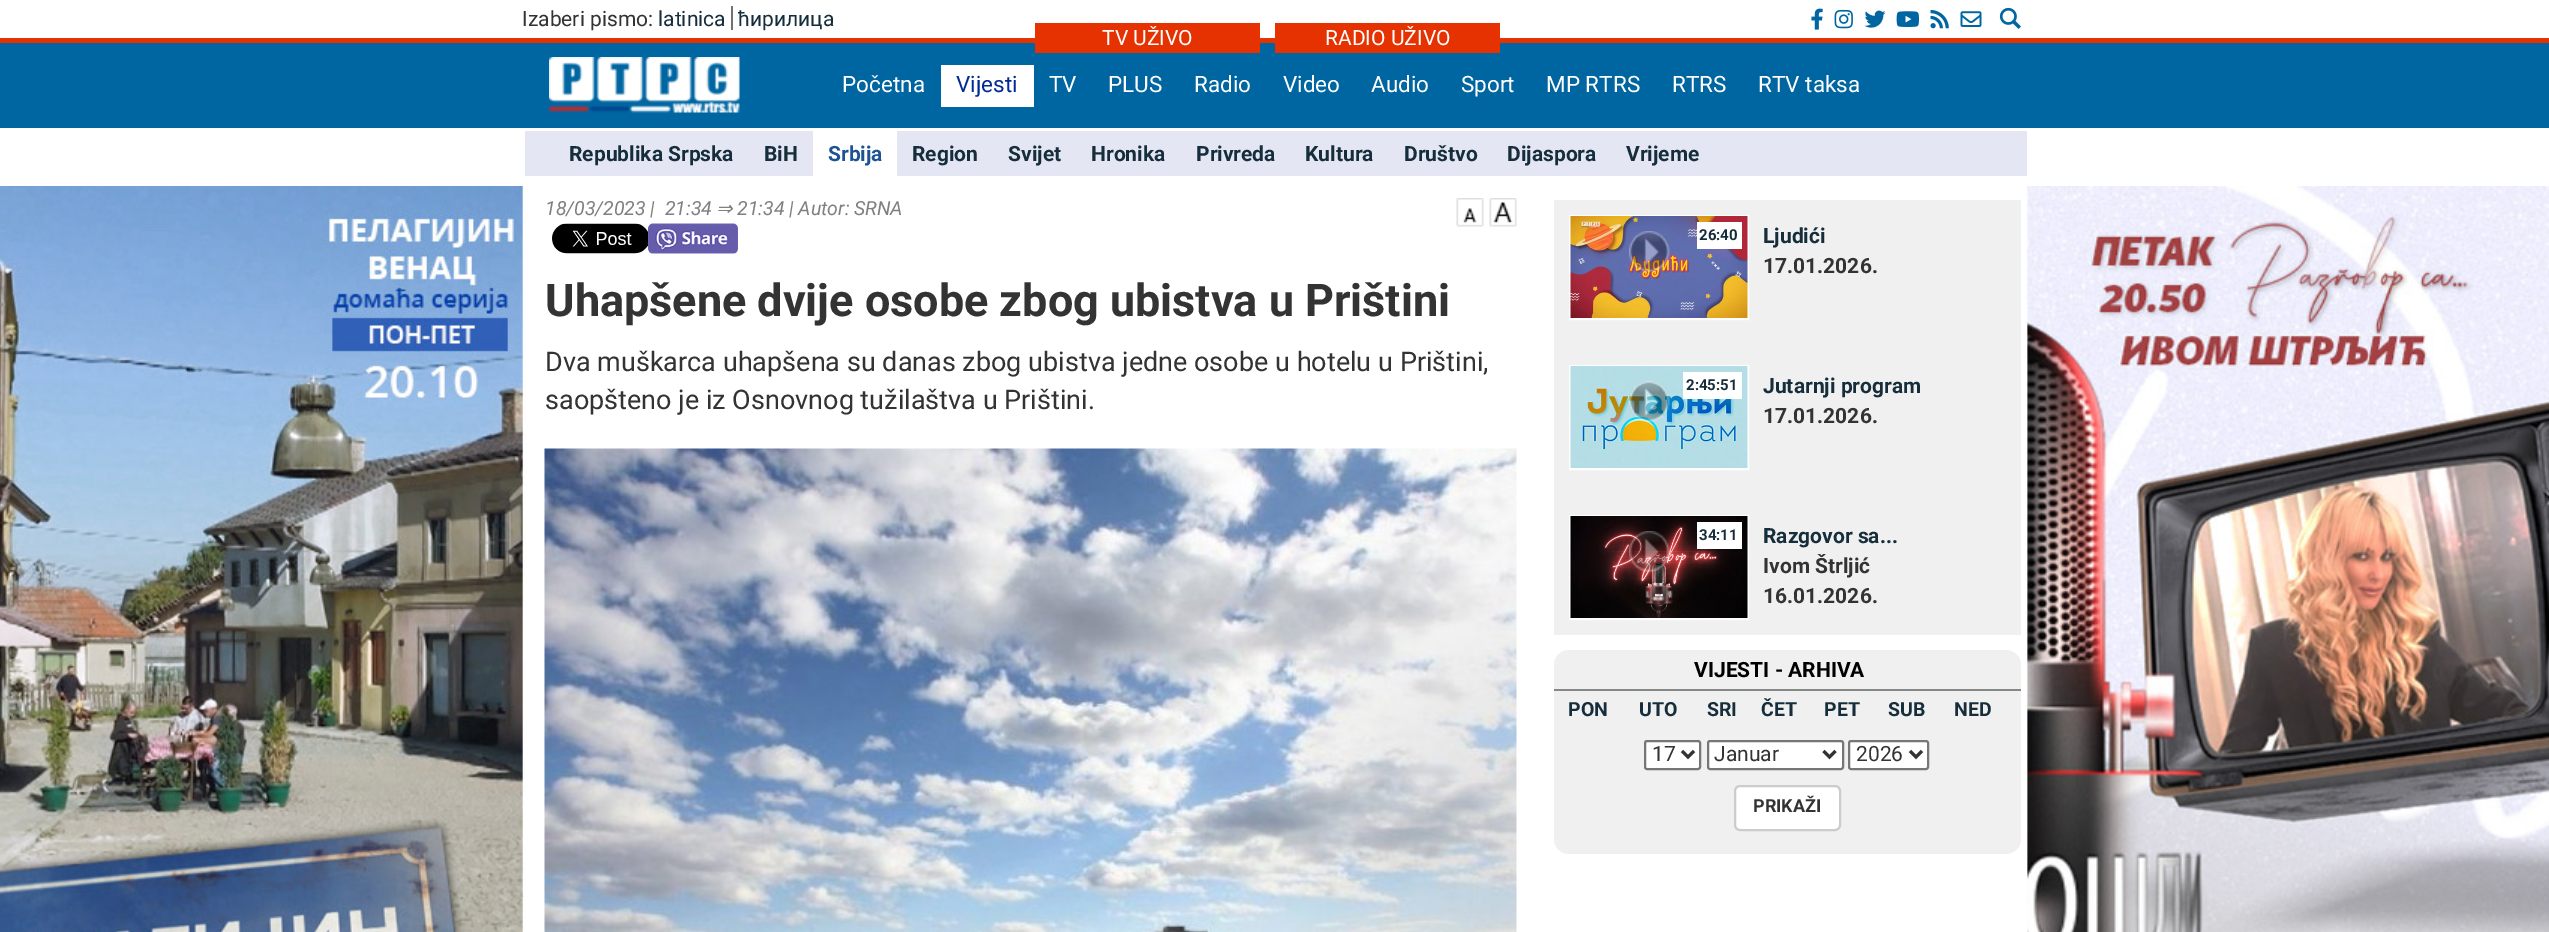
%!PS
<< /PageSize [2549 932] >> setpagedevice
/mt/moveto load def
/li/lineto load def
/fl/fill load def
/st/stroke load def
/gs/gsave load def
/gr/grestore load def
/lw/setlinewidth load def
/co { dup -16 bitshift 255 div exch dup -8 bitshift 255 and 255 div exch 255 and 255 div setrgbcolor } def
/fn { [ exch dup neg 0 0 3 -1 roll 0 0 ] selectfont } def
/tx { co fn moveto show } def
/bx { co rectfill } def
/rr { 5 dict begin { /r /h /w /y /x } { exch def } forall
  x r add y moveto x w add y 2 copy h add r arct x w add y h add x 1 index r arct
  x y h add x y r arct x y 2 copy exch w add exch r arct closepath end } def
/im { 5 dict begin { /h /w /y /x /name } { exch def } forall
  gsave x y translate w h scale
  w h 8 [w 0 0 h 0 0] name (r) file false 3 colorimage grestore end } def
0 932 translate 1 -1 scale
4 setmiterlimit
0 0 2549 932 16#FFFFFF bx
(media/1.raw) 0 186 2549 746 im
0 43 2549 85 16#0066A1 bx
731 6 2 24 16#727272 bx
(media/2.raw) 1811 8 12 22 im
(media/3.raw) 1834 9 19 20 im
(media/4.raw) 1864 10 22 18 im
(media/5.raw) 1896 11 23 16 im
(media/6.raw) 1930 9 19 20 im
(media/7.raw) 1960 11 22 16 im
(media/8.raw) 1999 7 22 22 im
0 38 2549 5 16#E63200 bx
1035 23 225 30 16#E63200 bx
1275 23 225 30 16#E63200 bx
(media/9.raw) 549 57 191 56 im
941 65 93 42 16#FFFFFF bx
525 186 1502 4 16#FFFFFF bx
525 131 1502 45 16#E4E6F3 bx
813 131 84 45 16#FFFFFF bx
(media/10.raw) 1456 198 28 29 im
(media/11.raw) 1489 198 28 29 im
(media/12.raw) 552 223 96 31 im
(media/13.raw) 648 223 90 31 im
(media/14.raw) 544 448 973 484 im
1554 200 467 435 16#F0F0F0 bx
16#FFFFFF co
2 lw
1570 216 178 103 rectstroke
(media/15.raw) 1570 216 178 102 im
(media/16.raw) 1629 231 41 41 im
1697 222 45 27 16#FFFFFF bx
1570 366 178 103 rectstroke
(media/17.raw) 1570 366 178 102 im
(media/18.raw) 1629 381 41 41 im
1683 372 59 27 16#FFFFFF bx
1570 516 178 103 rectstroke
(media/19.raw) 1570 516 178 102 im
(media/20.raw) 1629 531 41 41 im
1697 522 45 27 16#FFFFFF bx
16#F0F0F0 co
1554 650 467 204 15 rr fl
1554 689 467 2 16#868787 bx
16#FFFFFF co
1645 741 55 28 2 rr gs fl gr
16#767676 co
st
16#333333 co
3 lw
1682 751 mt 1688 757 li 1694 751 li st
16#FFFFFF co
1708 741 135 28 2 rr gs fl gr
16#767676 co
2 lw
st
16#333333 co
3 lw
1823.5 751 mt 1829.5 757 li 1835.5 751 li st
16#FFFFFF co
1849 741 79 28 2 rr gs fl gr
16#767676 co
2 lw
st
16#333333 co
3 lw
1910 751 mt 1916 757 li 1922 751 li st
16#FFFFFF co
1735 786 105 44 5 rr gs fl gr
16#CCCCCC co
2 lw
st
(Izaberi pismo:) 522 26 /Roboto-Regular 21 16#333333 tx
(latinica) 658 26 /Roboto-Regular 21 16#162D3B tx
(ћирилица) 738 26 /Roboto-Regular 21 16#162D3B tx
(TV UŽIVO) 1102 45 /Roboto-Regular 21 16#FFFFFF tx
(RADIO UŽIVO) 1325 45 /Roboto-Regular 21 16#FFFFFF tx
(Početna) 842 92 /Roboto-Regular 22.5 16#FFFFFF tx
(Vijesti) 956 92 /Roboto-Regular 22.5 16#022A94 tx
(TV) 1049 92 /Roboto-Regular 22.5 16#FFFFFF tx
(PLUS) 1108 92 /Roboto-Regular 22.5 16#FFFFFF tx
(Radio) 1194 92 /Roboto-Regular 22.5 16#FFFFFF tx
(Video) 1283 92 /Roboto-Regular 22.5 16#FFFFFF tx
(Audio) 1371 92 /Roboto-Regular 22.5 16#FFFFFF tx
(Sport) 1461 92 /Roboto-Regular 22.5 16#FFFFFF tx
(MP RTRS) 1546 92 /Roboto-Regular 22.5 16#FFFFFF tx
(RTRS) 1672 92 /Roboto-Regular 22.5 16#FFFFFF tx
(RTV taksa) 1758 92 /Roboto-Regular 22.5 16#FFFFFF tx
(Republika Srpska) 569 161 /Roboto-Bold 21 16#162D3B tx
(BiH) 764 161 /Roboto-Bold 21 16#162D3B tx
(Srbija) 828 161 /Roboto-Bold 21 16#1D5393 tx
(Region) 912 161 /Roboto-Bold 21 16#162D3B tx
(Svijet) 1008 161 /Roboto-Bold 21 16#162D3B tx
(Hronika) 1091 161 /Roboto-Bold 21 16#162D3B tx
(Privreda) 1196 161 /Roboto-Bold 21 16#162D3B tx
(Kultura) 1305 161 /Roboto-Bold 21 16#162D3B tx
(Društvo) 1404 161 /Roboto-Bold 21 16#162D3B tx
(Dijaspora) 1507 161 /Roboto-Bold 21 16#162D3B tx
(Vrijeme) 1626 161 /Roboto-Bold 21 16#162D3B tx
(18/03/2023 |  21:34) 545 215 /Roboto-Italic 19.5 16#818080 tx
(⇒) 716 215 /DejaVuSans-Italic 19.5 16#818080 tx
(21:34 | Autor: SRNA) 737 215 /Roboto-Italic 19.5 16#818080 tx
(Uhapšene dvije osobe zbog ubistva u Prištini) 545 316 /Roboto-Bold 45 16#333333 tx
(Dva muškarca uhapšena su danas zbog ubistva jedne osobe u hotelu u Prištini,) 545 371 /Roboto-Regular 27 16#333333 tx
(saopšteno je iz Osnovnog tužilaštva u Prištini.) 545 409 /Roboto-Regular 27 16#333333 tx
(26:40) 1699 240 /Roboto-Bold 15 16#162D3B tx
(Ljudići) 1763 243 /Roboto-Bold 21 16#162D3B tx
(17.01.2026.) 1763 273 /Roboto-Bold 21 16#333333 tx
(2:45:51) 1686 390 /Roboto-Bold 15 16#162D3B tx
(Јutarnji program) 1763 393 /Roboto-Bold 21 16#162D3B tx
(17.01.2026.) 1763 423 /Roboto-Bold 21 16#333333 tx
(34:11) 1699 540 /Roboto-Bold 15 16#162D3B tx
(Razgovor sa...) 1763 543 /Roboto-Bold 21 16#162D3B tx
(Ivom Štrljić) 1763 573 /Roboto-Bold 21 16#333333 tx
(16.01.2026.) 1763 603 /Roboto-Bold 21 16#333333 tx
(VIЈESTI - ARHIVA) 1694 677 /Roboto-Bold 21 16#000000 tx
(PON) 1568 716 /Roboto-Bold 19.5 16#162D3B tx
(UTO) 1639 716 /Roboto-Bold 19.5 16#162D3B tx
(SRI) 1707 716 /Roboto-Bold 19.5 16#162D3B tx
(ČET) 1761 716 /Roboto-Bold 19.5 16#162D3B tx
(PET) 1824 716 /Roboto-Bold 19.5 16#162D3B tx
(SUB) 1888 716 /Roboto-Bold 19.5 16#162D3B tx
(NED) 1954 716 /Roboto-Bold 19.5 16#162D3B tx
(17) 1652 761 /Roboto-Regular 21 16#333333 tx
(Јanuar) 1714 761 /Roboto-Regular 21 16#333333 tx
(2026) 1856 761 /Roboto-Regular 21 16#333333 tx
(PRIKAŽI) 1753 812 /Roboto-Bold 18 16#333333 tx
showpage
